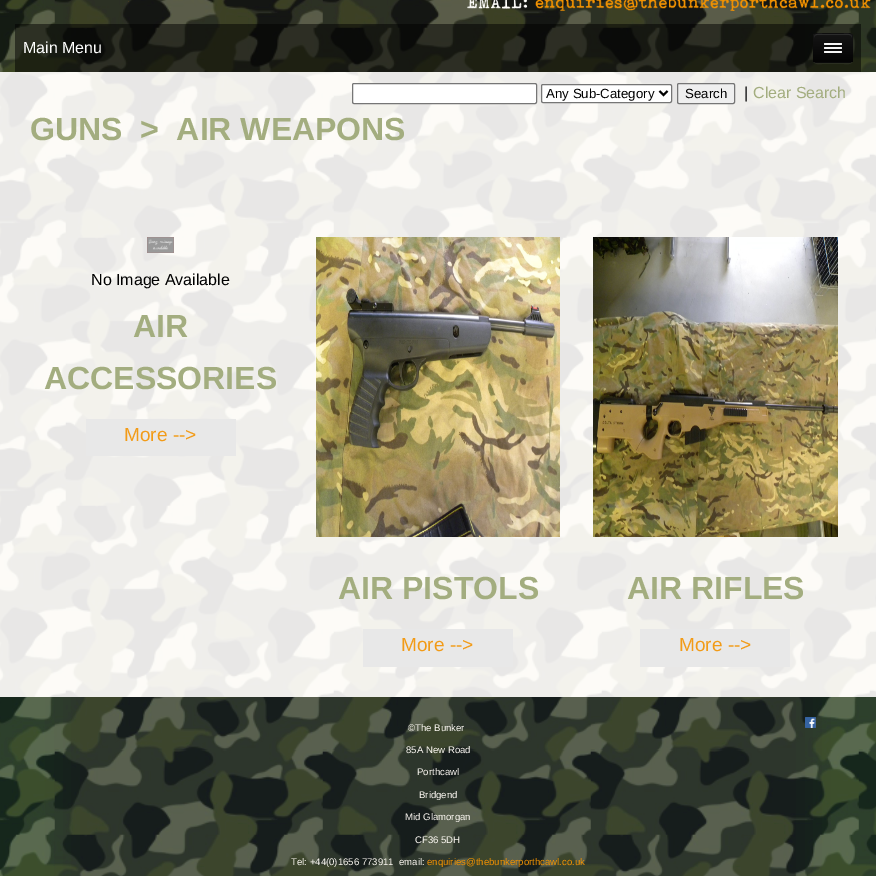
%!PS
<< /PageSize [876 876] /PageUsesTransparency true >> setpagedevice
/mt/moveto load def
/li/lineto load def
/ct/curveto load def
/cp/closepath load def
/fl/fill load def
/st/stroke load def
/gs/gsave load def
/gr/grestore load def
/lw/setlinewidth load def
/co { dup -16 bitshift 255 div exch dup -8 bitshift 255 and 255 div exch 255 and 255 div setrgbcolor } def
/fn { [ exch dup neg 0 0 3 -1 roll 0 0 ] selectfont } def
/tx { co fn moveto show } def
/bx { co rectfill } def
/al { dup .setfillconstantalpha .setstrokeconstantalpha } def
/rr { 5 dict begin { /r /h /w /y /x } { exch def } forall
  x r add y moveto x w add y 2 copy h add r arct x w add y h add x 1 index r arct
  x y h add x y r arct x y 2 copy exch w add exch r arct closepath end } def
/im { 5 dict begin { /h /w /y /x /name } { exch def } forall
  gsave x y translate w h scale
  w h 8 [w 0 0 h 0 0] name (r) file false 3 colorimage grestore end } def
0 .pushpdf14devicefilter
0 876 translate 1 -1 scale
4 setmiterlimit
0 0 876 876 16#FFFFFF bx
(media/1.raw) 0 0 876 876 im
(media/2.raw) 128 0 743 11 im
0.5 al
15 24 846 48 16#000000 bx
0.07 al
16#FFFFFF co
813 59 mt 813 65 818 64 822 64 ct 844 64 li 848 64 853 65 853 59 ct 853 61 851 63 849 63 ct 817 63 li 815 63 813 61 813 59 ct cp fl
1 al
16#0E0E0E co
813 33 40 30 4 rr fl
gs
813 33 40 30 4 rr clip newpath
gs 813 34 mt 853 34 li 853 62 li 813 62 li cp clip newpath
<< /ShadingType 2 /ColorSpace /DeviceRGB /Coords [833 34 833 62] /Extend [true true] /Function << /FunctionType 2 /Domain [0 1] /C0 [.082 .082 .082] /C1 [.016 .016 .016] /N 1 >> >> shfill gr
gr
16#2C2C2C co
817 35 mt 849 35 li 851 35 852 36 852 38 ct 852 33 848 34 843.5 34 ct 822.5 34 li 818 34 814 33 814 38 ct 814 36 815 35 817 35 ct cp fl
0.25 al
16#000000 co
851.5 61.5 mt 851 62 850 62.5 849 62.5 ct 817 62.5 li 816 62.5 815 62 814.5 61.5 ct st
1 al
16#0B0B0B co
824 44.5 mt 823 46.5 827.5 46 827.5 46 ct 838.5 46 li 838.5 46 843 46.5 842 44.5 ct 841 45.5 834.5 45 833 45 ct 831.5 45 825 45.5 824 44.5 ct cp fl
16#F5F5F5 co
824 43 18 2 1 rr fl
16#090909 co
824 48.5 mt 823 50.5 827.5 50 827.5 50 ct 838.5 50 li 838.5 50 843 50.5 842 48.5 ct 841 49.5 834.5 49 833 49 ct 831.5 49 825 49.5 824 48.5 ct cp fl
16#F5F5F5 co
824 47 18 2 1 rr fl
824 51 18 2 1 rr fl
(media/3.raw) 0 72 876 625 im
16#FFFFFF co
352.5 83.5 184 20 1.5 rr gs fl gr
16#767676 co
st
16#FFFFFF co
541.5 84.5 130 18 1.5 rr gs fl gr
16#767676 co
st
16#000000 co
2 lw
659.5 91 mt 663.5 95 li 667.5 91 li st
16#EFEFEF co
677.5 83.5 57 20 1.5 rr gs fl gr
16#767676 co
1 lw
st
(media/4.raw) 147 237 27 16 im
86 419 150 37 16#E8E8E8 bx
(media/5.raw) 316 237 244 300 im
363 629 150 38 16#E8E8E8 bx
(media/6.raw) 593 237 245 300 im
640 629 150 38 16#E8E8E8 bx
(media/7.raw) 805 717 11 11 im
(Main Menu) 23 53 /LiberationSans-Regular 16 16#FFFFFF tx
(Any Sub-Category) 546 98 /LiberationSans-Regular 13.25 16#000000 tx
(Search) 685 98 /LiberationSans-Regular 13.25 16#000000 tx
(|) 744 98 /LiberationSans-Regular 16 16#000000 tx
(Clear Search) 753 98 /LiberationSans-Regular 16 16#A3AD7F tx
(GUNS) 30 140 /LiberationSans-Bold 32 16#A3AD7F tx
(>  AIR WEAPONS) 140 140 /LiberationSans-Bold 32 16#A3AD7F tx
(No Image Available) 91 285 /LiberationSans-Regular 16 16#000000 tx
(AIR) 133 337 /LiberationSans-Bold 32 16#A3AD7F tx
(ACCESSORIES) 44 389 /LiberationSans-Bold 32 16#A3AD7F tx
(More -->) 124 441 /LiberationSans-Regular 19 16#F29B17 tx
(AIR PISTOLS) 338 599 /LiberationSans-Bold 32 16#A3AD7F tx
(More -->) 401 651 /LiberationSans-Regular 19 16#F29B17 tx
(AIR RIFLES) 627 599 /LiberationSans-Bold 32 16#A3AD7F tx
(More -->) 679 651 /LiberationSans-Regular 19 16#F29B17 tx
(©The Bunker) 408 731 /LiberationSans-Regular 9.6 16#FDF9F3 tx
(85A New Road) 406 753 /LiberationSans-Regular 9.6 16#FDF9F3 tx
(Porthcawl) 417 775 /LiberationSans-Regular 9.6 16#FDF9F3 tx
(Bridgend) 419 798 /LiberationSans-Regular 9.6 16#FDF9F3 tx
(Mid Glamorgan) 405 820 /LiberationSans-Regular 9.6 16#FDF9F3 tx
(CF36 5DH) 415 843 /LiberationSans-Regular 9.6 16#FDF9F3 tx
(Tel: +44\(0\)1656 773911) 291 865 /LiberationSans-Regular 9.6 16#FDF9F3 tx
(email:) 399 865 /LiberationSans-Regular 9.6 16#FDF9F3 tx
(enquiries@thebunkerporthcawl.co.uk) 427 865 /LiberationSans-Regular 9.6 16#F39200 tx
.poppdf14devicefilter showpage
